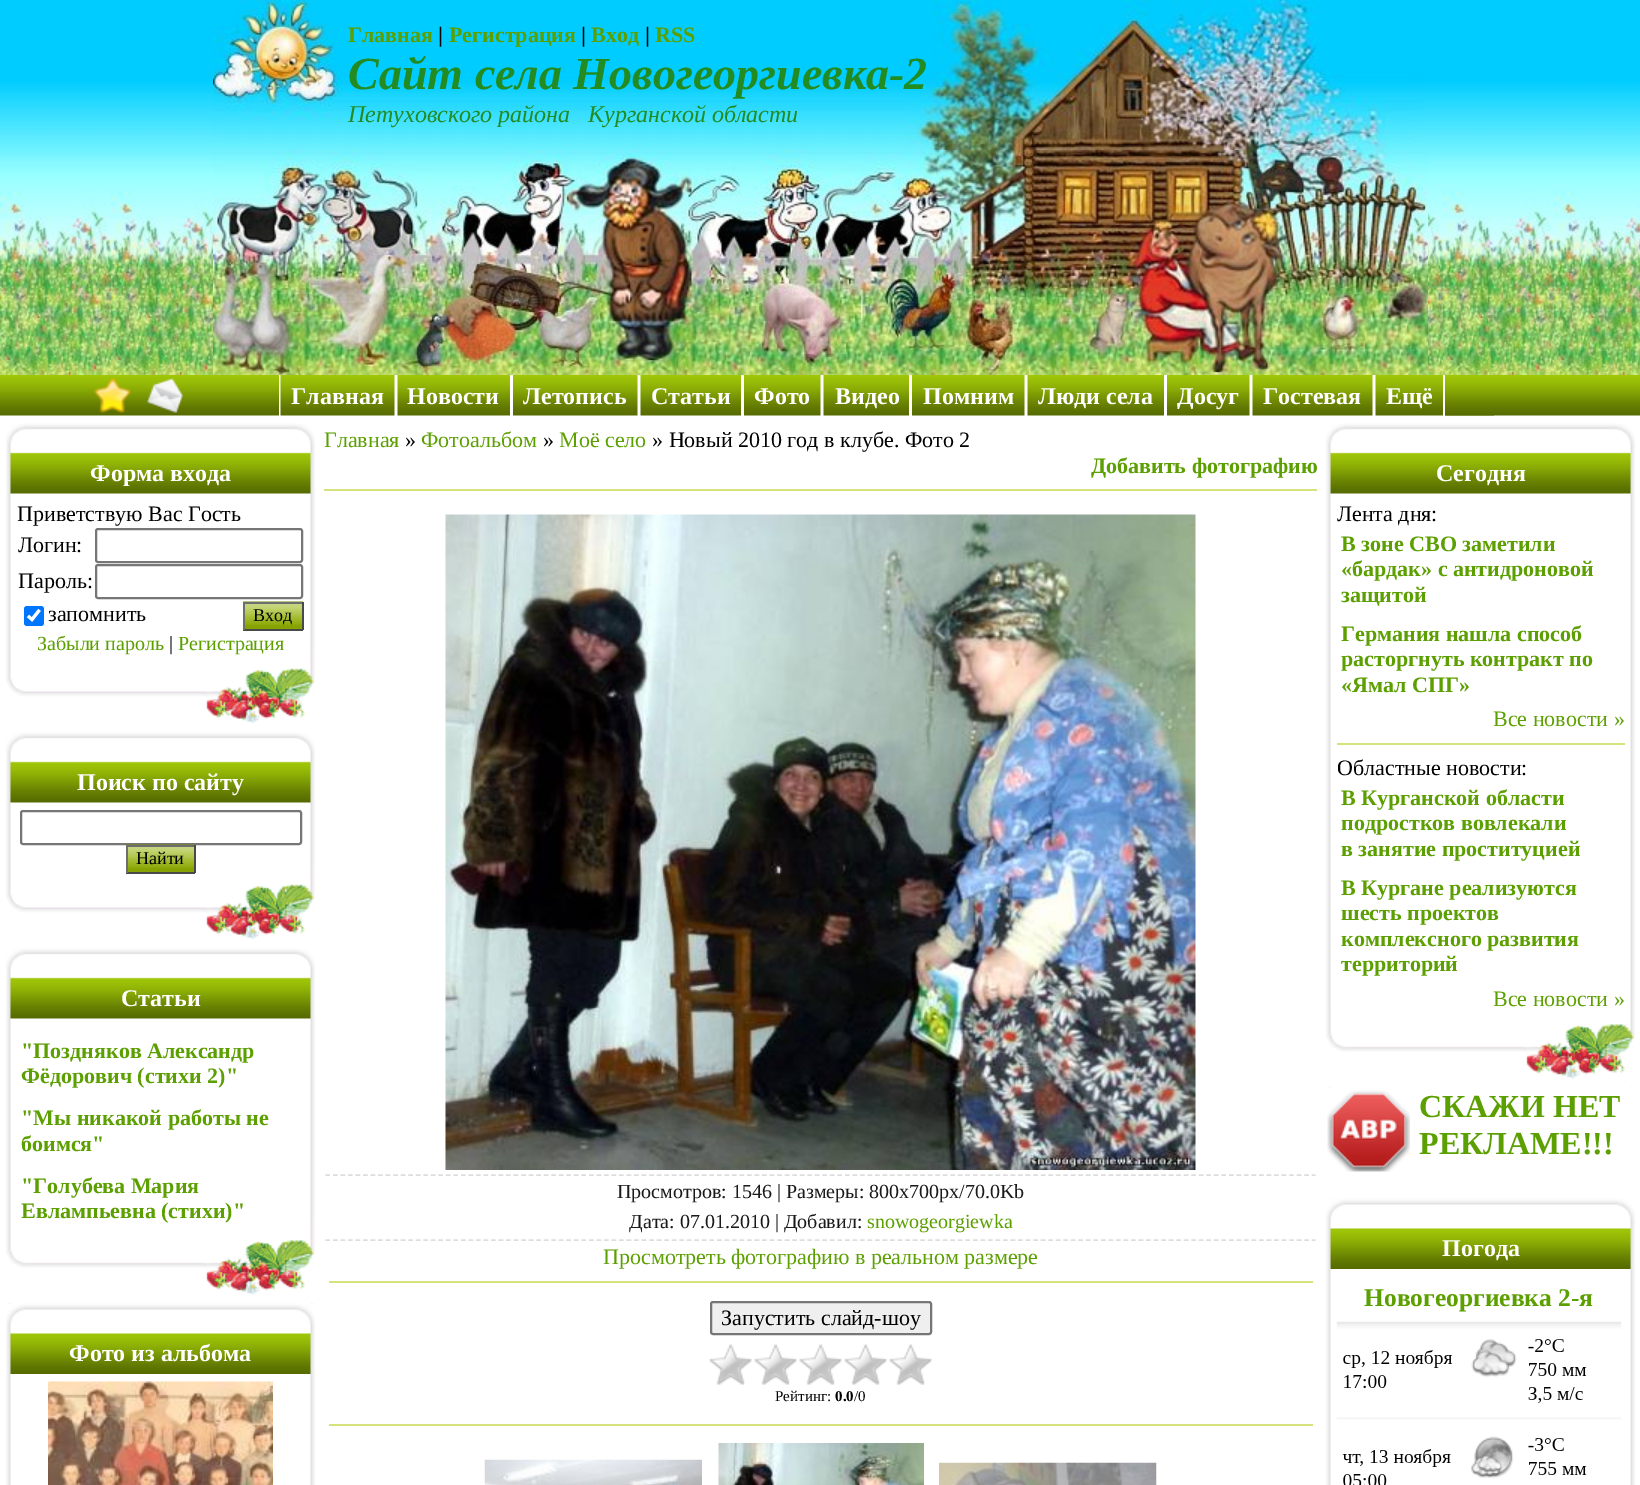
%!PS
<< /PageSize [1640 1485] >> setpagedevice
/mt/moveto load def
/li/lineto load def
/fl/fill load def
/st/stroke load def
/gs/gsave load def
/gr/grestore load def
/lw/setlinewidth load def
/co { dup -16 bitshift 255 div exch dup -8 bitshift 255 and 255 div exch 255 and 255 div setrgbcolor } def
/fn { [ exch dup neg 0 0 3 -1 roll 0 0 ] selectfont } def
/tx { co fn moveto show } def
/bx { co rectfill } def
/rr { 5 dict begin { /r /h /w /y /x } { exch def } forall
  x r add y moveto x w add y 2 copy h add r arct x w add y h add x 1 index r arct
  x y h add x y r arct x y 2 copy exch w add exch r arct closepath end } def
/im { 5 dict begin { /h /w /y /x /name } { exch def } forall
  gsave x y translate w h scale
  w h 8 [w 0 0 h 0 0] name (r) file false 3 colorimage grestore end } def
0 1485 translate 1 -1 scale
4 setmiterlimit
0 0 1640 1485 16#FFFFFF bx
(media/1.raw) 0 0 1640 375 im
(media/2.raw) 213 0 1210 150 im
(media/3.raw) 213 150 1215 225 im
(media/4.raw) 0 375 279 41 im
(media/5.raw) 94 378 37 36 im
(media/6.raw) 147 378 36 35 im
(media/7.raw) 1445 375 195 41 im
1445 415 49 1 16#80913F bx
(media/8.raw) 280 375 115 41 im
(media/9.raw) 397 375 113 41 im
(media/10.raw) 513 375 125 41 im
(media/11.raw) 640 375 101 41 im
(media/12.raw) 744 375 77 41 im
(media/13.raw) 823 375 86 41 im
(media/14.raw) 912 375 113 41 im
(media/15.raw) 1027 375 137 41 im
(media/16.raw) 1167 375 83 41 im
(media/17.raw) 1252 375 121 41 im
(media/18.raw) 1375 375 68 41 im
(media/19.raw) 6 493 309 157 im
(media/20.raw) 6 423 309 71 im
(media/21.raw) 6 650 309 82 im
16#767676 co
2 lw
96 529 206 33 2 rr st
96 565 206 33 2 rr st
16#0075FF co
24 606 20 20 3 rr fl
16#FFFFFF co
3.1 lw
28 616 mt 32 619.5 li 39.5 610 li st
245 625 57 4 16#87A303 bx
(media/22.raw) 243 601 60 24 im
243 602 60 2 16#6E6E6E bx
302 602 2 28 16#494949 bx
243 629 60 2 16#494949 bx
243 602 2 28 16#6E6E6E bx
(media/23.raw) 6 802 309 64 im
(media/20.raw) 6 732 309 71 im
(media/21.raw) 6 866 309 82 im
16#767676 co
2 lw
21 811 280 33 2 rr st
128 868 66 4 16#87A303 bx
(media/24.raw) 126 844 69 24 im
126 845 69 2 16#6E6E6E bx
194 845 2 28 16#494949 bx
126 872 69 2 16#494949 bx
126 845 2 28 16#6E6E6E bx
(media/25.raw) 6 1018 309 286 im
(media/20.raw) 6 948 309 71 im
(media/26.raw) 6 1221 309 83 im
(media/27.raw) 6 1303 309 182 im
(media/28.raw) 6 1303 309 71 im
(media/29.raw) 48 1381 225 104 im
324 489 993 2 16#D6E37D bx
(media/30.raw) 445 514 751 656 im
16#DDDDDD co
1.5 lw
[4.5 3.03] 0 setdash
325.5 1175 mt 1315.5 1175 li st
325.5 1240 mt 1315.5 1240 li st
329 1281 984 2 16#D6E37D bx
16#EFEFEF co
711 1302 220 32 2 rr gs fl gr
16#767676 co
2 lw
[] 0 setdash
st
(media/31.raw) 709 1344 223 41 im
329 1424 984 2 16#D6E37D bx
(media/32.raw) 484 1459 218 26 im
(media/33.raw) 718 1443 206 42 im
(media/34.raw) 939 1462 218 23 im
(media/35.raw) 1326 493 309 595 im
(media/36.raw) 1326 423 309 71 im
(media/37.raw) 1326 1005 309 83 im
1337 743 288 2 16#D6E37D bx
(media/38.raw) 1327 1090 83 82 im
(media/39.raw) 1326 1198 309 287 im
(media/40.raw) 1326 1198 309 71 im
(media/41.raw) 1336 1321 286 164 im
(Главная) 348 42 /LiberationSerif-Bold 22 16#5C9F00 tx
(|) 438 42 /LiberationSerif-Bold 22 16#000000 tx
(Регистрация) 449 42 /LiberationSerif-Bold 22 16#5C9F00 tx
(|) 581 42 /LiberationSerif-Bold 22 16#000000 tx
(Вход) 591 42 /LiberationSerif-Bold 22 16#5C9F00 tx
(|) 645 42 /LiberationSerif-Bold 22 16#000000 tx
(RSS) 655 42 /LiberationSerif-Bold 22 16#5C9F00 tx
(Сайт села Новогеоргиевка-2) 348 89 /LiberationSerif-BoldItalic 46 16#228B22 tx
(Петуховского района   Курганской области) 348 122 /LiberationSerif-Italic 24 16#228B22 tx
(Главная) 291 404 /LiberationSerif-Bold 24 16#FFFFFF tx
(Новости) 407 404 /LiberationSerif-Bold 24 16#FFFFFF tx
(Летопись) 523 404 /LiberationSerif-Bold 24 16#FFFFFF tx
(Статьи) 651 404 /LiberationSerif-Bold 24 16#FFFFFF tx
(Фото) 754 404 /LiberationSerif-Bold 24 16#FFFFFF tx
(Видео) 835 404 /LiberationSerif-Bold 24 16#FFFFFF tx
(Помним) 923 404 /LiberationSerif-Bold 24 16#FFFFFF tx
(Люди села) 1038 404 /LiberationSerif-Bold 24 16#FFFFFF tx
(Досуг) 1177 404 /LiberationSerif-Bold 24 16#FFFFFF tx
(Гостевая) 1263 404 /LiberationSerif-Bold 24 16#FFFFFF tx
(Ещё) 1386 404 /LiberationSerif-Bold 24 16#FFFFFF tx
(Форма входа) 90 481 /LiberationSerif-Bold 24 16#FFFFFF tx
(Приветствую Вас Гость) 17 521 /LiberationSerif-Regular 22 16#000000 tx
(Логин:) 18 552 /LiberationSerif-Regular 22 16#000000 tx
(Пароль:) 18 588 /LiberationSerif-Regular 22 16#000000 tx
(запомнить) 48 621 /LiberationSerif-Regular 22 16#000000 tx
(Вход) 253 621 /LiberationSerif-Regular 18 16#000000 tx
(Забыли пароль) 37 650 /LiberationSerif-Regular 20 16#5C9F00 tx
(|) 169 650 /LiberationSerif-Regular 20 16#000000 tx
(Регистрация) 178 650 /LiberationSerif-Regular 20 16#5C9F00 tx
(Поиск по сайту) 77 790 /LiberationSerif-Bold 24 16#FFFFFF tx
(Найти) 136 864 /LiberationSerif-Regular 18 16#000000 tx
(Статьи) 121 1006 /LiberationSerif-Bold 24 16#FFFFFF tx
("Поздняков Александр) 21 1058 /LiberationSerif-Bold 22 16#5C9F00 tx
(Фёдорович \(стихи 2\)") 21 1083 /LiberationSerif-Bold 22 16#5C9F00 tx
("Мы никакой работы не) 21 1125 /LiberationSerif-Bold 22 16#5C9F00 tx
(боимся") 21 1151 /LiberationSerif-Bold 22 16#5C9F00 tx
("Голубева Мария) 21 1193 /LiberationSerif-Bold 22 16#5C9F00 tx
(Евлампьевна \(стихи\)") 21 1218 /LiberationSerif-Bold 22 16#5C9F00 tx
(Фото из альбома) 69 1361 /LiberationSerif-Bold 24 16#FFFFFF tx
(Главная) 324 447 /LiberationSerif-Regular 22 16#5C9F00 tx
(») 405 447 /LiberationSerif-Regular 22 16#000000 tx
(Фотоальбом) 421 447 /LiberationSerif-Regular 22 16#5C9F00 tx
(») 543 447 /LiberationSerif-Regular 22 16#000000 tx
(Моё село) 559 447 /LiberationSerif-Regular 22 16#5C9F00 tx
(» Новый 2010 год в клубе. Фото 2) 652 447 /LiberationSerif-Regular 22 16#000000 tx
(Добавить фотографию) 1091 473 /LiberationSerif-Bold 22 16#5C9F00 tx
(Просмотров: 1546 | Размеры: 800x700px/70.0Kb) 617 1198 /LiberationSerif-Regular 20 16#1A1A1A tx
(Дата: 07.01.2010 | Добавил:) 629 1228 /LiberationSerif-Regular 20 16#1A1A1A tx
(snowogeorgiewka) 867 1228 /LiberationSerif-Regular 20 16#5C9F00 tx
(Просмотреть фотографию в реальном размере) 603 1264 /LiberationSerif-Regular 22 16#5C9F00 tx
(Запустить слайд-шоу) 721 1325 /LiberationSerif-Regular 22 16#000000 tx
(Рейтинг:) 775 1401 /LiberationSerif-Regular 15 16#000000 tx
(0.0) 835 1401 /LiberationSerif-Bold 15 16#000000 tx
(/0) 854 1401 /LiberationSerif-Regular 15 16#000000 tx
(Сегодня) 1436 481 /LiberationSerif-Bold 24 16#FFFFFF tx
(Лента дня:) 1337 521 /LiberationSerif-Regular 22 16#000000 tx
(В зоне СВО заметили) 1341 551 /LiberationSerif-Bold 22 16#5C9F00 tx
(«бардак» с антидроновой) 1341 576 /LiberationSerif-Bold 22 16#5C9F00 tx
(защитой) 1341 602 /LiberationSerif-Bold 22 16#5C9F00 tx
(Германия нашла способ) 1341 641 /LiberationSerif-Bold 22 16#5C9F00 tx
(расторгнуть контракт по) 1341 666 /LiberationSerif-Bold 22 16#5C9F00 tx
(«Ямал СПГ») 1341 692 /LiberationSerif-Bold 22 16#5C9F00 tx
(Все новости ») 1493 726 /LiberationSerif-Regular 22 16#5C9F00 tx
(Областные новости:) 1337 775 /LiberationSerif-Regular 22 16#000000 tx
(В Курганской области) 1341 805 /LiberationSerif-Bold 22 16#5C9F00 tx
(подростков вовлекали) 1341 830 /LiberationSerif-Bold 22 16#5C9F00 tx
(в занятие проституцией) 1341 856 /LiberationSerif-Bold 22 16#5C9F00 tx
(В Кургане реализуются) 1341 895 /LiberationSerif-Bold 22 16#5C9F00 tx
(шесть проектов) 1341 920 /LiberationSerif-Bold 22 16#5C9F00 tx
(комплексного развития) 1341 946 /LiberationSerif-Bold 22 16#5C9F00 tx
(территорий) 1341 971 /LiberationSerif-Bold 22 16#5C9F00 tx
(Все новости ») 1493 1006 /LiberationSerif-Regular 22 16#5C9F00 tx
(СКАЖИ НЕТ) 1419 1117 /LiberationSerif-Bold 32 16#5C9F00 tx
(РЕКЛАМЕ!!!) 1419 1154 /LiberationSerif-Bold 32 16#5C9F00 tx
(Погода) 1442 1256 /LiberationSerif-Bold 24 16#FFFFFF tx
(Новогеоргиевка 2-я) 1364 1306 /LiberationSerif-Bold 25.5 16#5C9F00 tx
showpage
